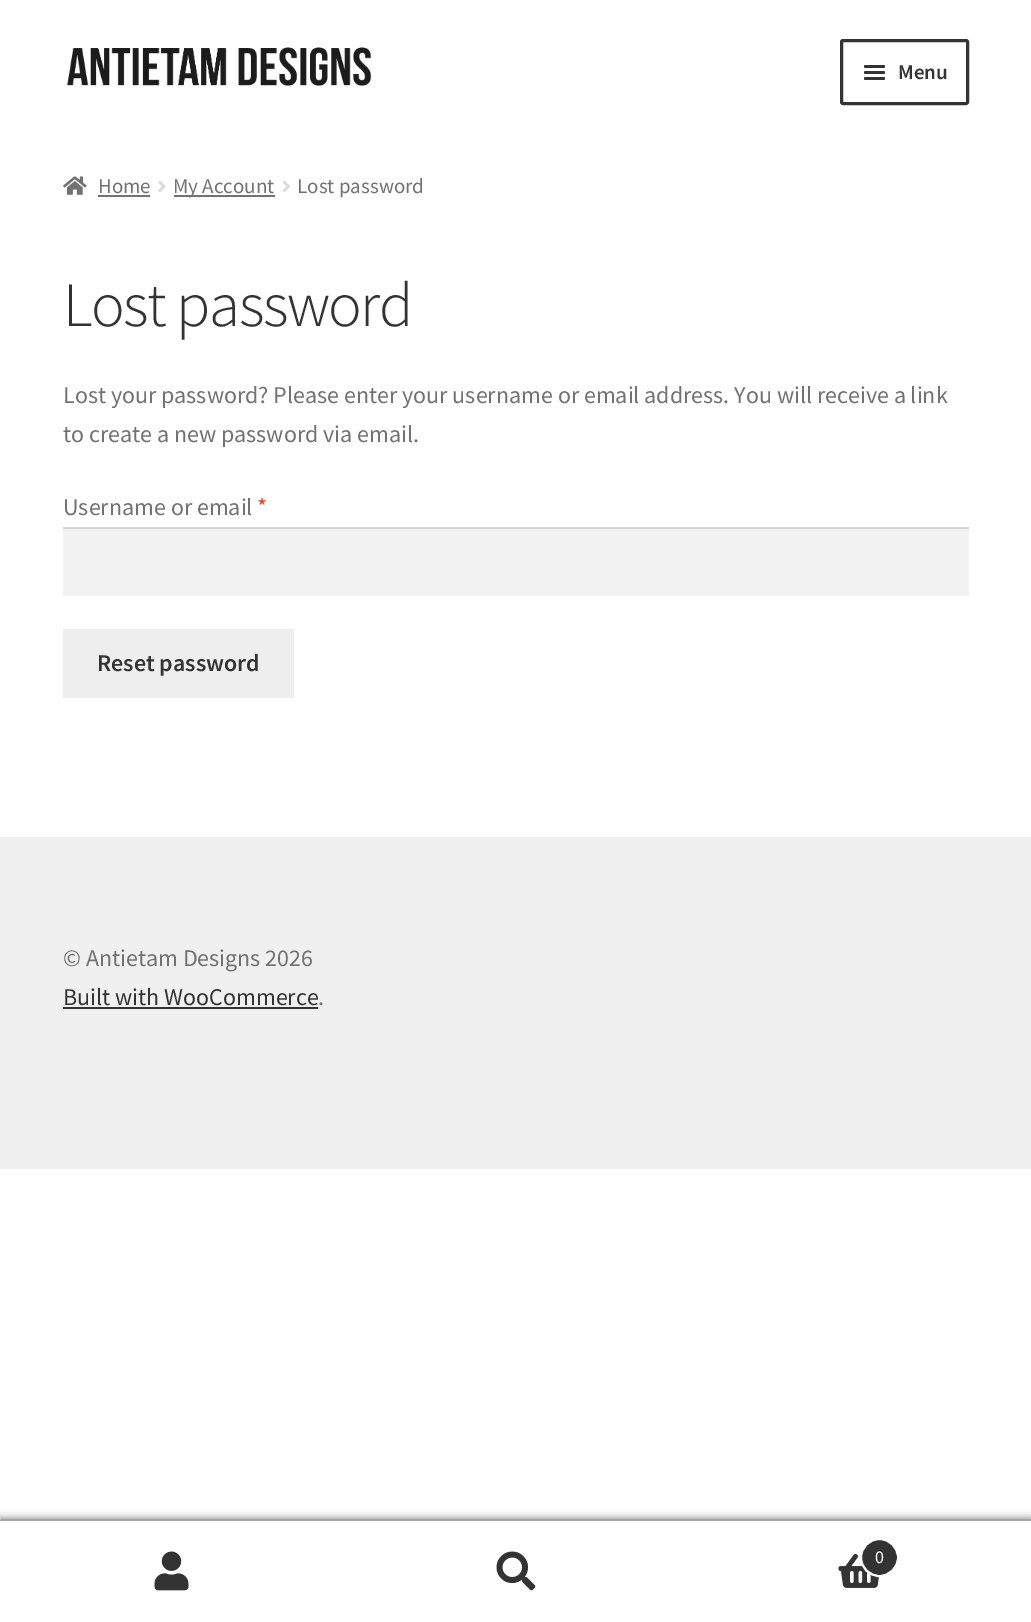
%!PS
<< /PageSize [1031 1622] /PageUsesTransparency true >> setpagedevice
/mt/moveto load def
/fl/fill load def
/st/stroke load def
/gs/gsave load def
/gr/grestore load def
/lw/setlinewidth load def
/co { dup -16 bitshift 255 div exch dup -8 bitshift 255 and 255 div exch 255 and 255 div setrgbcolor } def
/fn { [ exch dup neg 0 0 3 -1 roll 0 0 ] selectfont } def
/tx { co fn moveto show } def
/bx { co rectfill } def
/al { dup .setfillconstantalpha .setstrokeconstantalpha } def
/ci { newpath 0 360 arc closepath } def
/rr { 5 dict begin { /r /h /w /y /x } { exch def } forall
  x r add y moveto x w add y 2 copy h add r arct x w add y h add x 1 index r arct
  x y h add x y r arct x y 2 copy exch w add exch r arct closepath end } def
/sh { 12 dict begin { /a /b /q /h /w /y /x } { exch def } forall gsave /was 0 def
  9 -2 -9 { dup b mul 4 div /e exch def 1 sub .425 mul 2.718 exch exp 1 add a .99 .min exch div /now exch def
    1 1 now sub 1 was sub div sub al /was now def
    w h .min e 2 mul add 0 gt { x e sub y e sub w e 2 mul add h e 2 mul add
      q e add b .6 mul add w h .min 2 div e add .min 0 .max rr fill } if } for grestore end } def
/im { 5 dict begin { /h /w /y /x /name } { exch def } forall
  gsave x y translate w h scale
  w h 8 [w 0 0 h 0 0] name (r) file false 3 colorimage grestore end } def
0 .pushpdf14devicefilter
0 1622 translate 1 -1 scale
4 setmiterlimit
0 0 1031 1622 16#FFFFFF bx
(media/1.raw) 66 47 306 39 im
16#333333 co
3 lw
841.5 40.5 126 63 1.5 rr st
864 65 21 3 1.5 rr fl
864 71 21 3 1.5 rr fl
864 77 21 3 1.5 rr fl
(media/2.raw) 63 176 24 19 im
98 195 52 2 16#727272 bx
(media/3.raw) 158 180 8 12 im
174 195 101 2 16#727272 bx
(media/4.raw) 282 180 8 12 im
63 529 906 67 16#F2F2F2 bx
63 527 906 2 16#D4D4D4 bx
63 629 231 69 16#EEEEEE bx
0 837 1031 332 16#F0F0F0 bx
63 1007 255 2 16#333333 bx
16#000000 co
0 1520 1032 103 0 4.5 .7 sh
0 1521 1031 101 16#FFFFFF bx
(media/5.raw) 154 1551 35 40 im
(media/6.raw) 496 1551 40 40 im
(media/7.raw) 838 1553 41 35 im
16#333333 co
879.5 1557.5 18.5 ci gs fl gr
16#FFFFFF co
2 lw
st
(Menu) 898 79 /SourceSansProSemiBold-SemiBold 21 16#333333 tx
(Home) 98 193 /SourceSansPro-Regular 21 16#727272 tx
(My Account) 173 193 /SourceSansPro-Regular 21 16#727272 tx
(Lost password) 297 193 /SourceSansPro-Regular 21 16#727272 tx
/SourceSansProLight-Light 63 fn
16#333333 co
63 326 mt -1.5 0 (Lost password) ashow
(Lost your password? Please enter your username or email address. You will receive a link) 63 403 /SourceSansPro-Regular 24 16#727272 tx
(to create a new password via email.) 63 442 /SourceSansPro-Regular 24 16#727272 tx
(Username or email) 63 515 /SourceSansPro-Regular 24 16#727272 tx
(*) 257 515 /SourceSansPro-Regular 24 16#E2401C tx
(Reset password) 97 671 /SourceSansProSemiBold-SemiBold 24 16#333333 tx
(© Antietam Designs 2026) 63 966 /SourceSansPro-Regular 24 16#727272 tx
(Built with WooCommerce) 63 1005 /SourceSansPro-Regular 24 16#333333 tx
(.) 318 1005 /SourceSansPro-Regular 24 16#727272 tx
(0) 875 1563 /SourceSansPro-Regular 18 16#FFFFFF tx
.poppdf14devicefilter showpage
